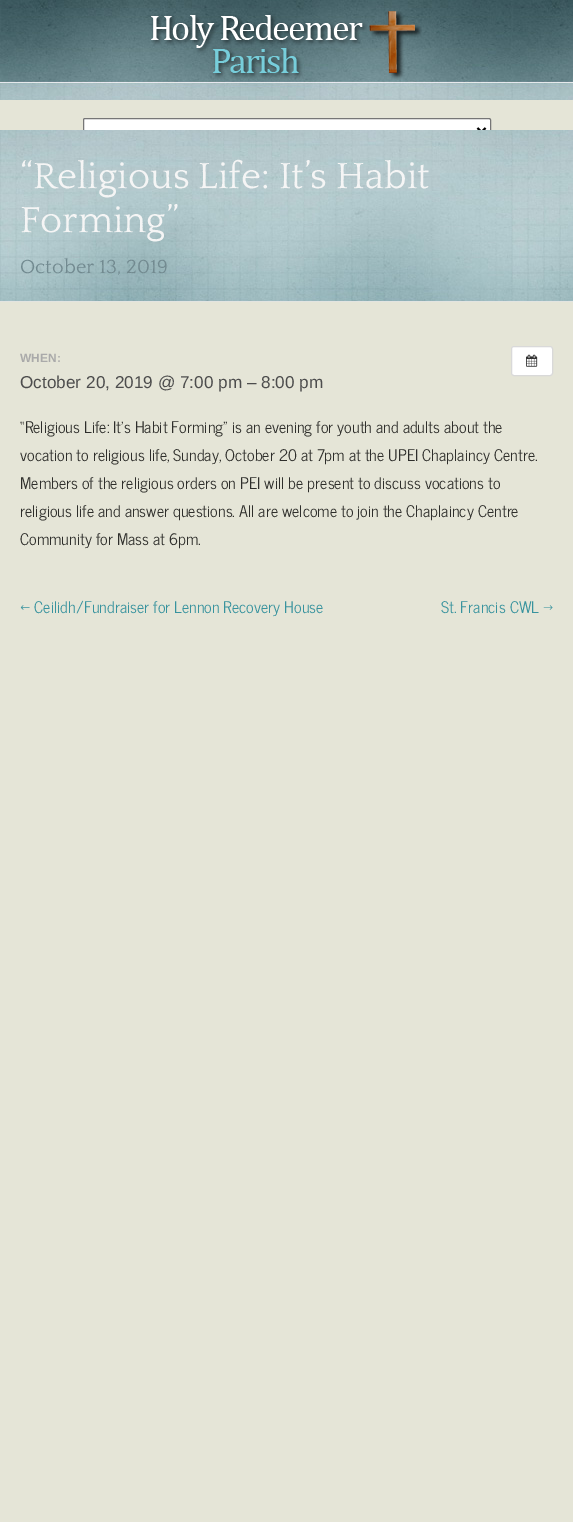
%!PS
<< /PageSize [573 1522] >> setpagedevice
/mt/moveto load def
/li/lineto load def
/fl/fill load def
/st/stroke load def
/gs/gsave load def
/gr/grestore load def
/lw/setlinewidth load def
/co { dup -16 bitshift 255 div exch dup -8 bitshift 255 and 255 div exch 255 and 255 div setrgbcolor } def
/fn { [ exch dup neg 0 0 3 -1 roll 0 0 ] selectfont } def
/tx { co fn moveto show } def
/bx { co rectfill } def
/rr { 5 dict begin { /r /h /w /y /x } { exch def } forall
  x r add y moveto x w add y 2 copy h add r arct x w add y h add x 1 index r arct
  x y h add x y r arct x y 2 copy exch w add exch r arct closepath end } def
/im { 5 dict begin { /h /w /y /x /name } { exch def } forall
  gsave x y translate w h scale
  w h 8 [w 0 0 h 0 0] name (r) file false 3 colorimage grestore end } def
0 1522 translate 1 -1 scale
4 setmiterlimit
0 0 573 1522 16#E5E5D7 bx
(media/1.raw) 0 0 573 100 im
(media/2.raw) 151 11 271 69 im
16#FFFFFF co
83.5 118.5 407 23 1.5 rr gs fl gr
16#767676 co
st
16#000000 co
2 lw
477.5 128 mt 481.5 132 li 485.5 128 li st
(media/3.raw) 0 130 573 171 im
0 301 573 1 16#E2E4E1 bx
16#FFFFFF co
511.5 346.5 41 29 2.5 rr gs fl gr
16#D9D9D9 co
1 lw
st
(media/4.raw) 526 354 12 13 im
(“Religious Life: It’s Habit) 20 188 /Quattrocento-Regular 38 16#F5F5F5 tx
(Forming”) 20 232 /Quattrocento-Regular 38 16#F5F5F5 tx
(October 13, 2019) 20 273 /Quattrocento-Regular 20 16#728A90 tx
(WHEN:) 20 362 /LiberationSans-Bold 12 16#AAAAAA tx
(October 20, 2019 @ 7:00 pm – 8:00 pm) 20 388 /LiberationSans-Regular 17.2 16#4D4D4D tx
(“Religious Life: It’s Habit Forming” is an evening for youth and adults about the) 20 433 /NewsCycle-Regular 16 16#2E2E2B tx
(vocation to religious life, Sunday, October 20 at 7pm at the UPEI Chaplaincy Centre.) 20 461 /NewsCycle-Regular 16 16#2E2E2B tx
(Members of the religious orders on PEI will be present to discuss vocations to) 20 489 /NewsCycle-Regular 16 16#2E2E2B tx
(religious life and answer questions. All are welcome to join the Chaplaincy Centre) 20 517 /NewsCycle-Regular 16 16#2E2E2B tx
(Community for Mass at 6pm.) 20 545 /NewsCycle-Regular 16 16#2E2E2B tx
(← Ceilidh/Fundraiser for Lennon Recovery House) 20 613 /NewsCycle-Regular 16 16#38939E tx
(St. Francis CWL →) 441 613 /NewsCycle-Regular 16 16#38939E tx
showpage
